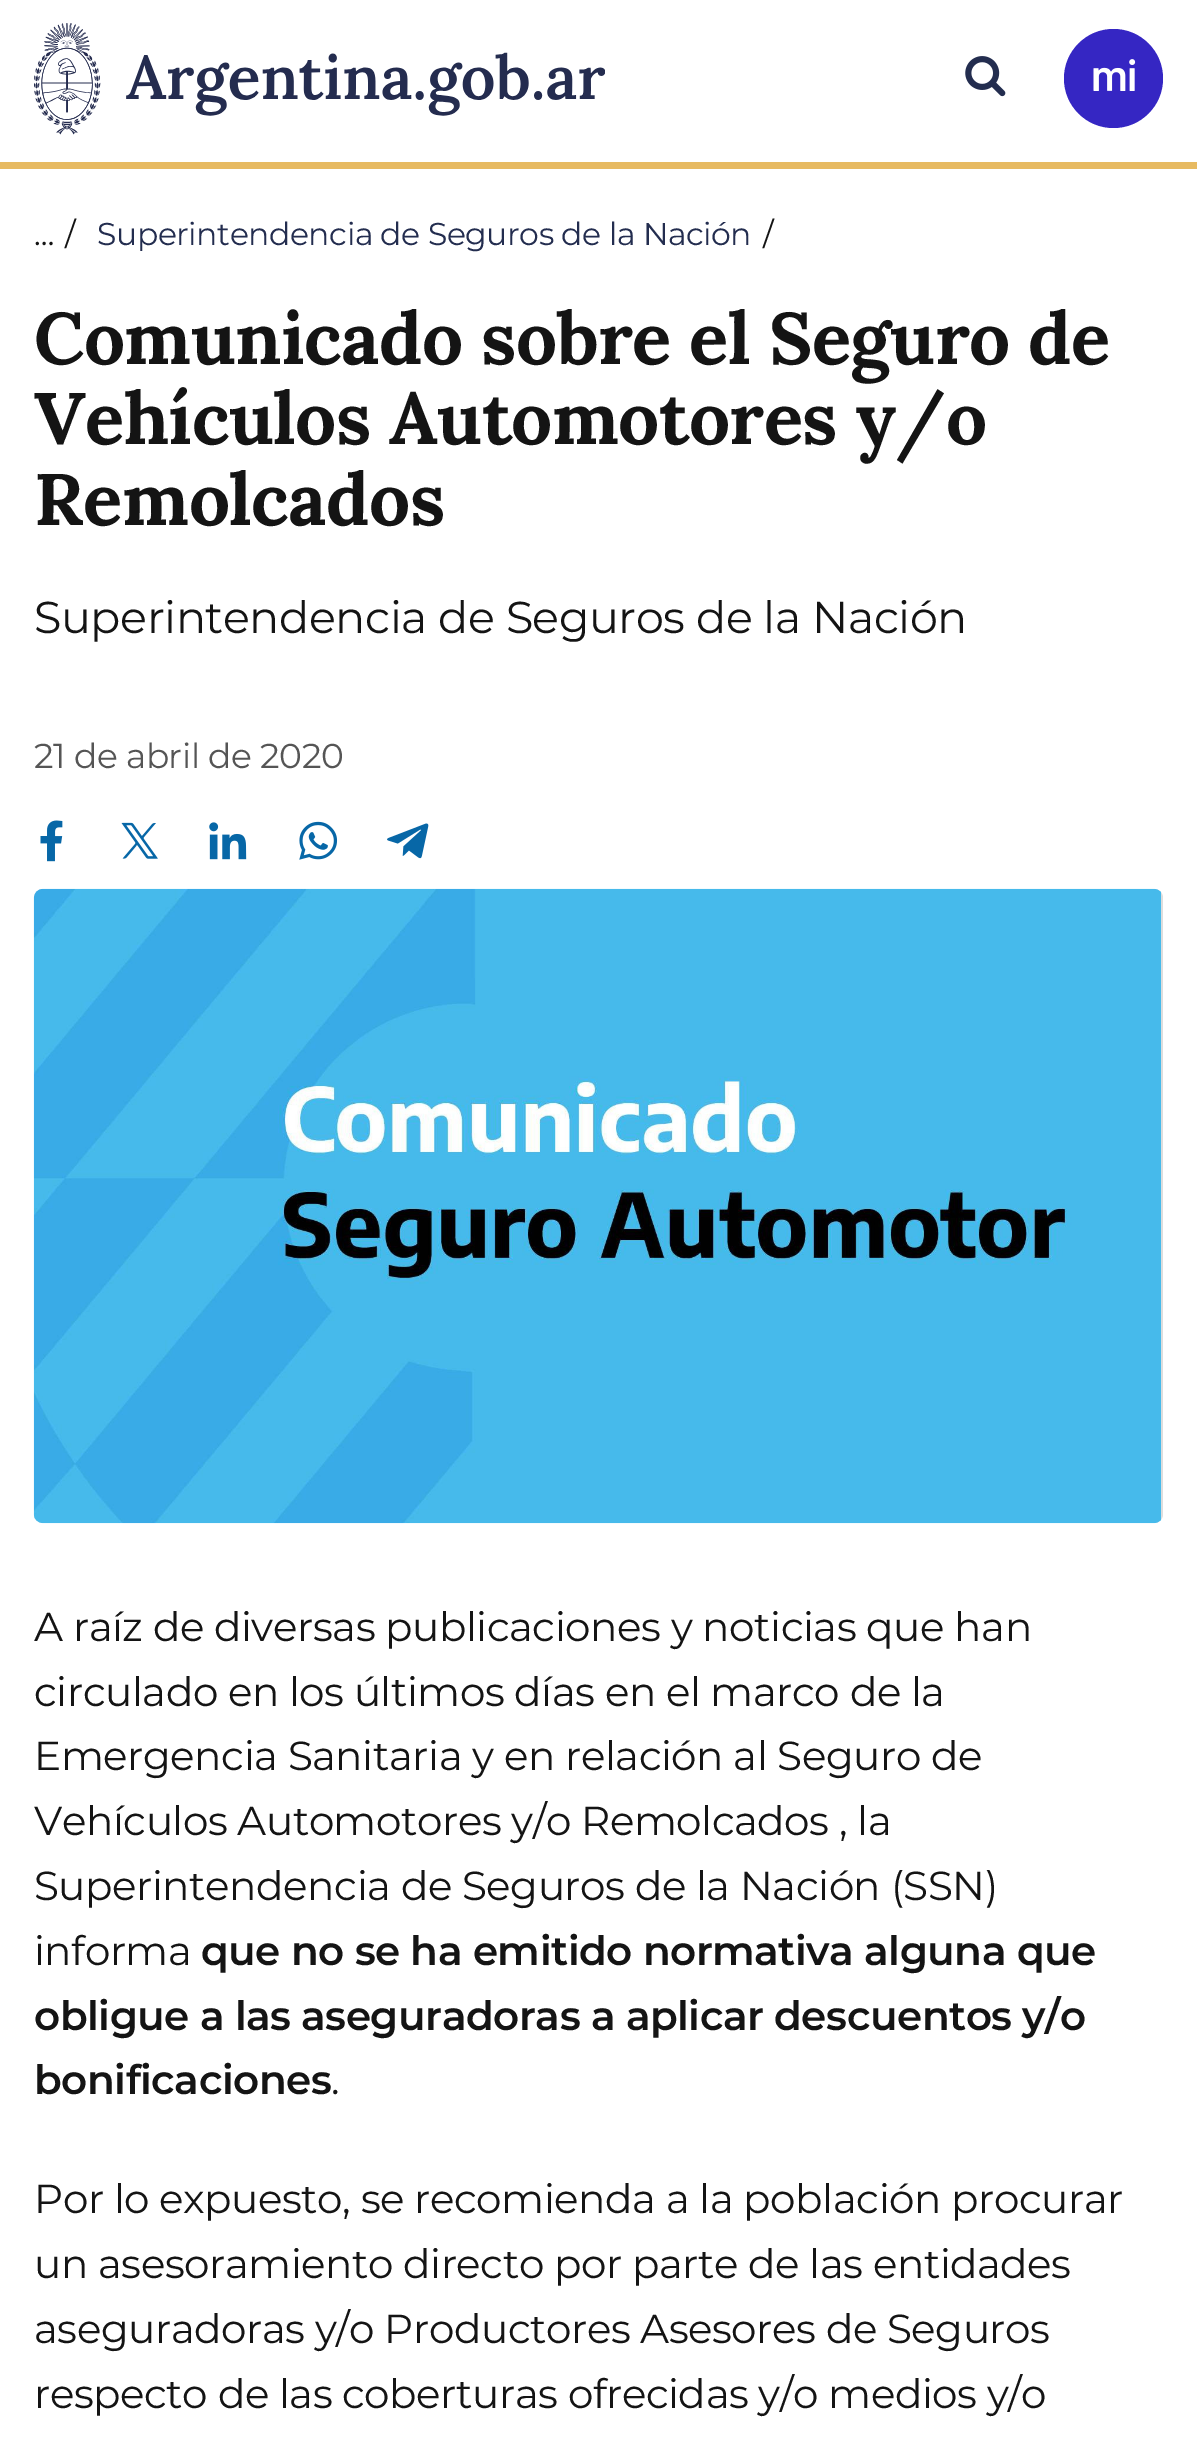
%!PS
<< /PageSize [1197 2444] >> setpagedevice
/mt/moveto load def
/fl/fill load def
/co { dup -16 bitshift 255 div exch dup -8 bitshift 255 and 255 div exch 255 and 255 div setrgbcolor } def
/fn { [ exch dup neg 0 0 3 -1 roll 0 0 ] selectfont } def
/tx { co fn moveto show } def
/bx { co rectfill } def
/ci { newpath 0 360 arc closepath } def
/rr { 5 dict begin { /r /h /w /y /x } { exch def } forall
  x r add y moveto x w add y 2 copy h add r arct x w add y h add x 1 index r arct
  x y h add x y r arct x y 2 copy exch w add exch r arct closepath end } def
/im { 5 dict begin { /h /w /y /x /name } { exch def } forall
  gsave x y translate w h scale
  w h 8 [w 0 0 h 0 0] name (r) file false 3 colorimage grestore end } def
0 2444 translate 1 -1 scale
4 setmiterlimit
0 0 1197 2444 16#FFFFFF bx
0 162 1197 7 16#E7BA61 bx
(media/1.raw) 34 23 571 112 im
(media/2.raw) 965 56 41 41 im
16#3526C3 co
1113.5 78.5 49.5 ci fl
(media/3.raw) 1093 59 43 32 im
(media/4.raw) 40 820 23 42 im
(media/5.raw) 121 822 37 37 im
(media/6.raw) 209 822 38 38 im
(media/7.raw) 299 821 39 39 im
(media/8.raw) 387 823 42 36 im
16#DDDDDD co
34 889 1129 634 9 rr fl
(media/9.raw) 33 888 1128 636 im
(…) 34 245 /Montserrat-Regular 31.5 16#141414 tx
(/) 65 245 /Montserrat-Regular 31.5 16#141414 tx
16#232D4F co
97 245 mt -.45 0 (Superintendencia de Seguros de la Nación) ashow
16#141414 co
763 245 mt -.45 0 (/) ashow
/Lora-Bold 72.9 fn
34 364 mt -.6 0 (Comunicado sobre el Seguro de) ashow
34 444 mt -.6 0 (Vehículos Automotores y/o) ashow
34 525 mt -.6 0 (Remolcados) ashow
/Montserrat-Regular 44.55 fn
34 633 mt -.45 0 (Superintendencia de Seguros de la Nación) ashow
/Montserrat-Regular 34.5 fn
16#555555 co
34 768 mt -.45 0 (21 de abril de 2020) ashow
/Montserrat-Regular 40.5 fn
16#141414 co
34 1641 mt -.45 0 (A raíz de diversas publicaciones y noticias que han) ashow
34 1706 mt -.45 0 (circulado en los últimos días en el marco de la) ashow
34 1770 mt -.45 0 (Emergencia Sanitaria y en relación al Seguro de) ashow
34 1835 mt -.45 0 (Vehículos Automotores y/o Remolcados , la) ashow
34 1900 mt -.45 0 (Superintendencia de Seguros de la Nación \(SSN\)) ashow
34 1965 mt -.45 0 (informa) ashow
/Montserrat-SemiBold 40.5 fn
201 1965 mt -.45 0 (que no se ha emitido normativa alguna que) ashow
34 2030 mt -.45 0 (obligue a las aseguradoras a aplicar descuentos y/o) ashow
34 2094 mt -.45 0 (bonificaciones) ashow
/Montserrat-Regular 40.5 fn
331 2094 mt -.45 0 (.) ashow
34 2213 mt -.45 0 (Por lo expuesto, se recomienda a la población procurar) ashow
34 2278 mt -.45 0 (un asesoramiento directo por parte de las entidades) ashow
34 2343 mt -.45 0 (aseguradoras y/o Productores Asesores de Seguros) ashow
34 2408 mt -.45 0 (respecto de las coberturas ofrecidas y/o medios y/o) ashow
showpage
